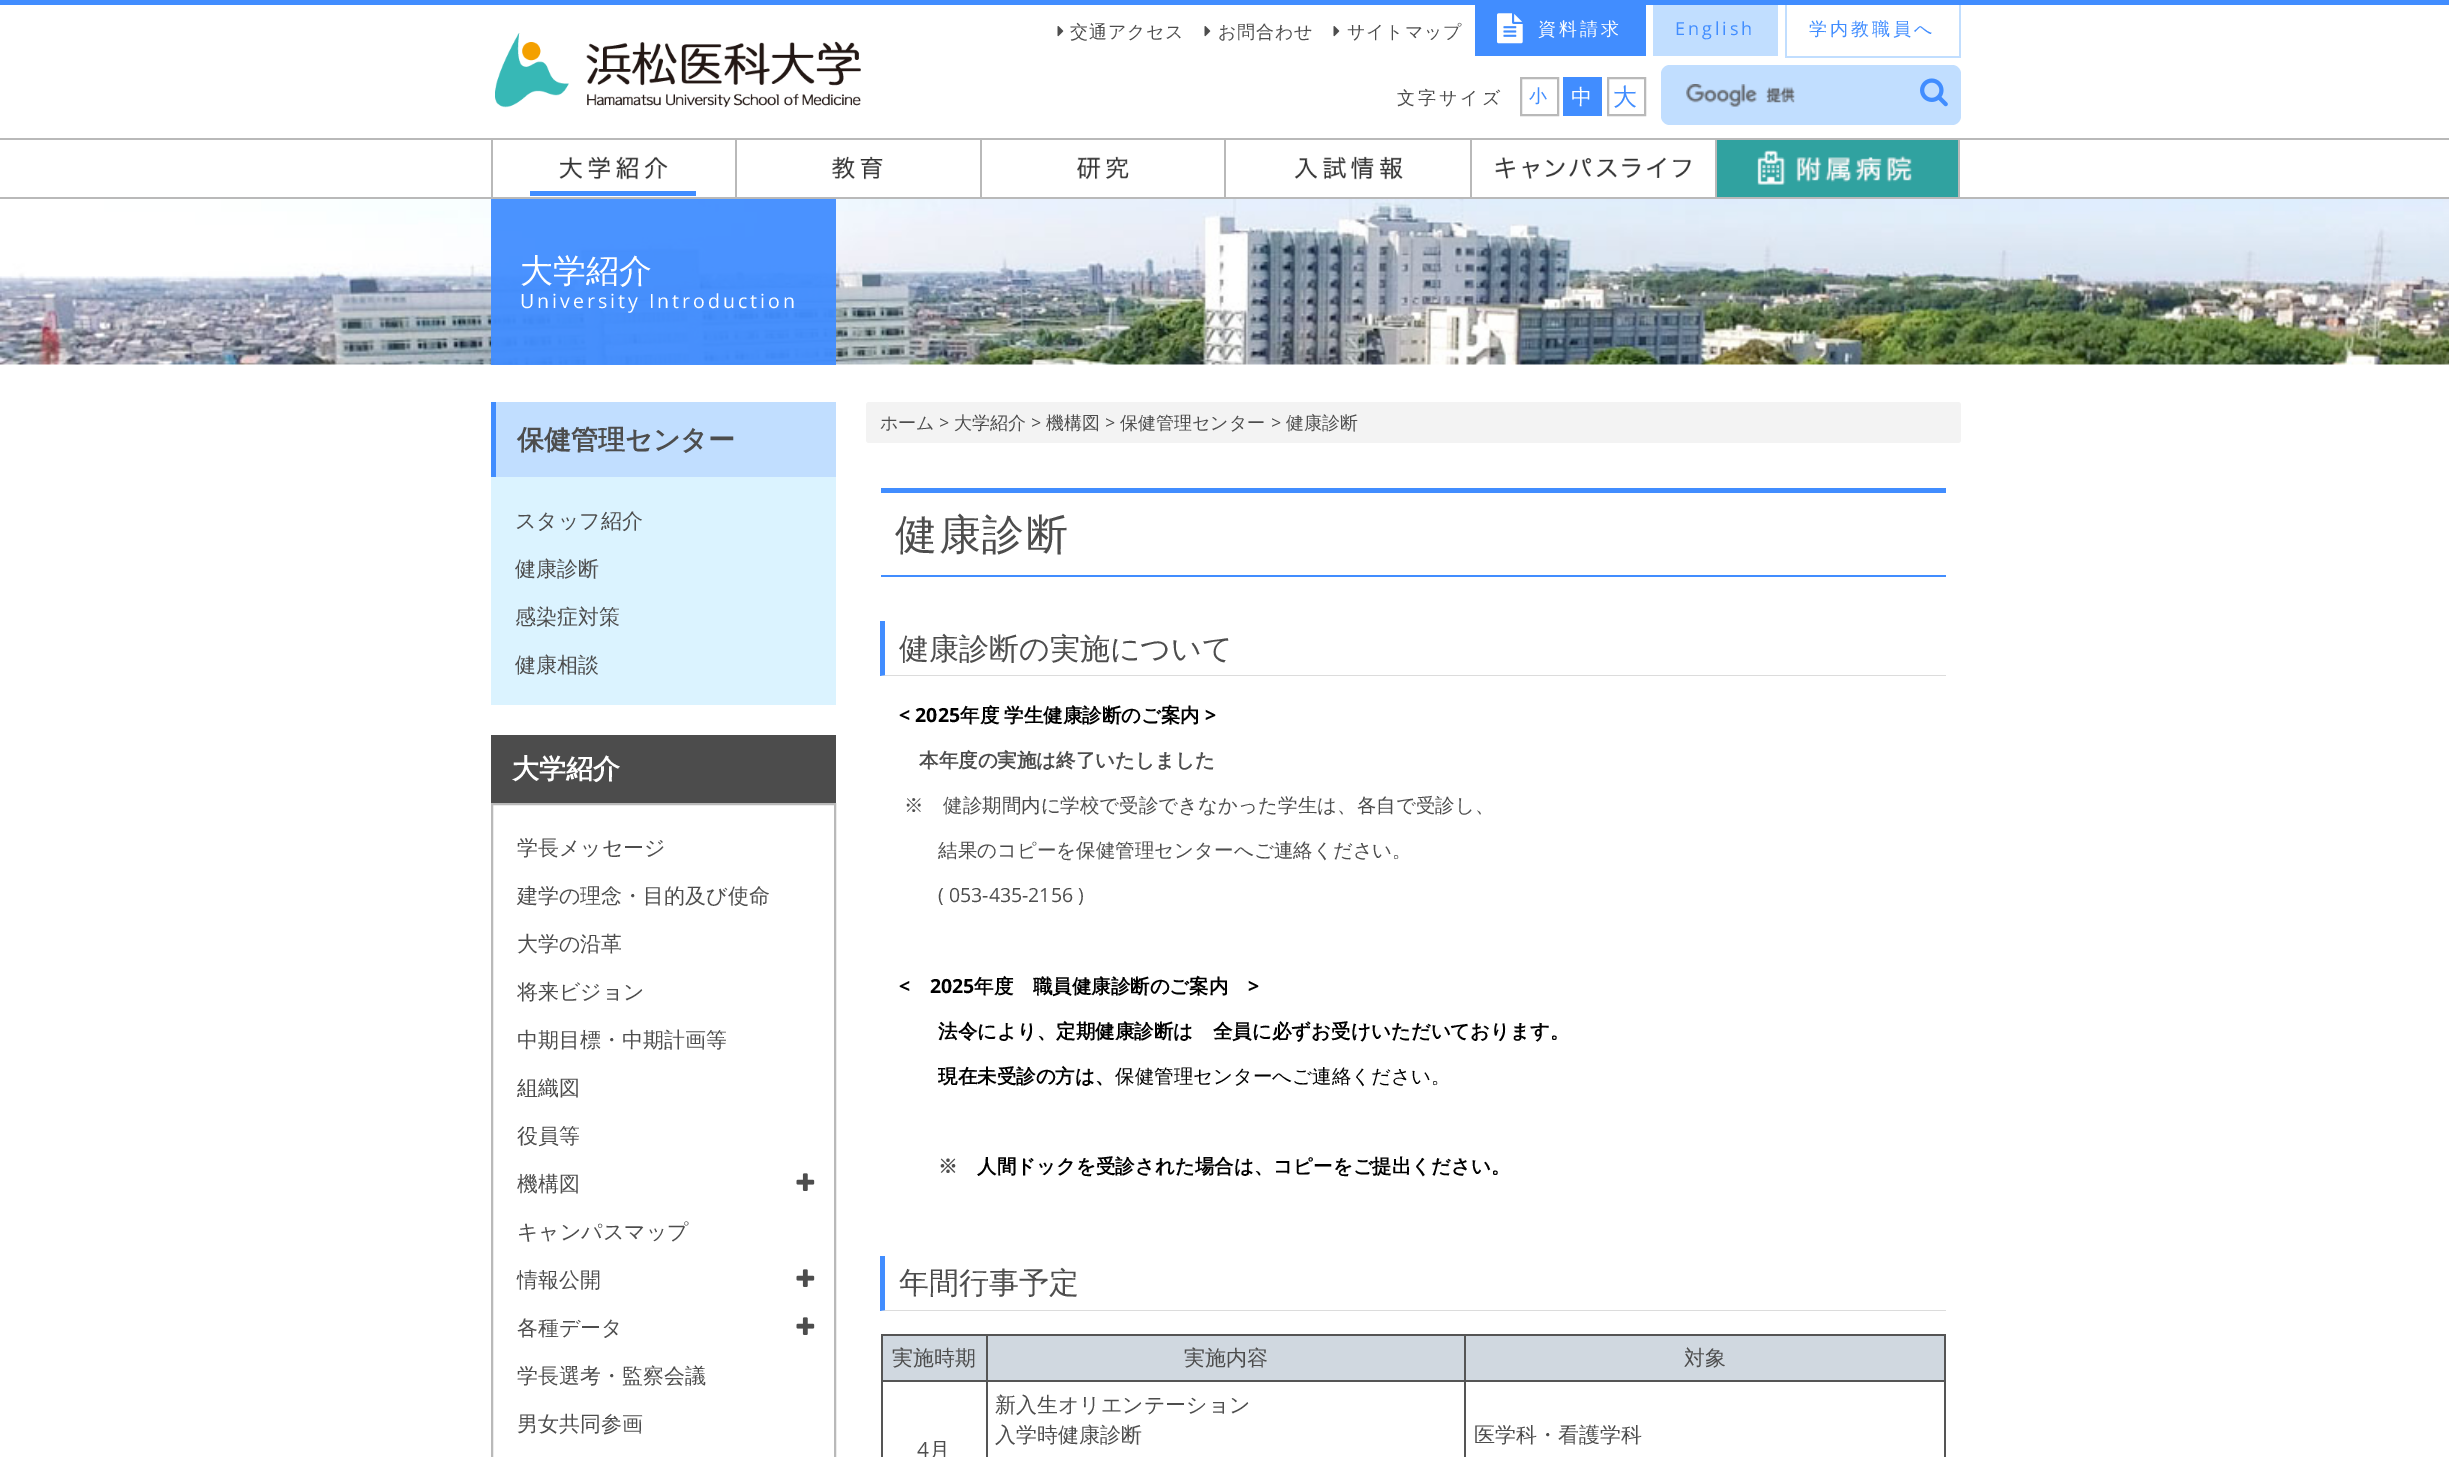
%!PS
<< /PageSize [2449 1457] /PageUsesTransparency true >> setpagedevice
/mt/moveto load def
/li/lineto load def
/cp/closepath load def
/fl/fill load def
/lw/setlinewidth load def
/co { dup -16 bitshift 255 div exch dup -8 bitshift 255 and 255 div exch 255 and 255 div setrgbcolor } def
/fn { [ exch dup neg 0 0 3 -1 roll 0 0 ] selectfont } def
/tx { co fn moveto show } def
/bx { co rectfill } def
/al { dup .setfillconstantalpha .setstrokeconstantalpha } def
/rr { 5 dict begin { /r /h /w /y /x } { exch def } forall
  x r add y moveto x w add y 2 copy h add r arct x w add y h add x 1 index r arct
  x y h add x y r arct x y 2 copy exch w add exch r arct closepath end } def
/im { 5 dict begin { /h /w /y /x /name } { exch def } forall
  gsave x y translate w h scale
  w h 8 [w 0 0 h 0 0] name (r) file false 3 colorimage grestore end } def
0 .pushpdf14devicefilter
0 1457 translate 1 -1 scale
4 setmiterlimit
0 0 2449 1457 16#FFFFFF bx
0 0 2449 5 16#418DFF bx
(media/1.raw) 495 33 366 75 im
(media/2.raw) 1057 26 7 11 im
(media/2.raw) 1204 26 7 11 im
(media/2.raw) 1333 26 7 11 im
1475 5 171 51 16#418DFF bx
(media/3.raw) 1497 13 26 31 im
1653 5 125 51 16#C1DEFF bx
1959 5 2 52 16#C1DEFF bx
1785 56 176 2 16#C1DEFF bx
1785 5 2 52 16#C1DEFF bx
16#B9B9B9 co
2 lw
1521 78 37 37 rectstroke
1563 77 39 39 16#418DFF bx
16#B9B9B9 co
1608 78 37 37 rectstroke
16#C1DEFF co
1661 65 300 60 9 rr fl
(media/4.raw) 1686 84 109 23 im
(media/5.raw) 1920 78 28 29 im
0 138 2449 2 16#B9B9B9 bx
0 197 2449 2 16#B9B9B9 bx
491 140 2 57 16#B9B9B9 bx
(media/6.raw) 559 156 109 24 im
530 191 166 5 16#418DFF bx
735 140 2 57 16#B9B9B9 bx
(media/7.raw) 832 156 51 24 im
980 140 2 57 16#B9B9B9 bx
(media/8.raw) 1077 156 52 24 im
1224 140 2 57 16#B9B9B9 bx
(media/9.raw) 1294 156 109 24 im
1470 140 2 57 16#B9B9B9 bx
(media/10.raw) 1495 157 197 22 im
1717 140 241 57 16#30A2A0 bx
1958 140 2 57 16#B9B9B9 bx
1715 140 2 57 16#B9B9B9 bx
(media/11.raw) 1757 150 155 35 im
(media/12.raw) 0 199 2449 166 im
0.95 al
491 199 345 166 16#418DFF bx
1 al
491 477 345 228 16#DBF3FF bx
496 402 340 75 16#C1DEFF bx
491 402 5 75 16#418DFF bx
491 735 345 68 16#4C4C4C bx
16#B9B9B9 co
492 804 343 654 rectstroke
(media/13.raw) 796 1173 19 18 im
(media/13.raw) 796 1269 19 18 im
(media/13.raw) 796 1317 19 18 im
16#F3F3F3 co
866 402 1095 41 3 rr fl
881 488 1065 5 16#418DFF bx
881 575 1065 2 16#418DFF bx
16#DCDCDC co
1946 676 mt 880 676 li 885 675 li 1946 675 li cp fl
16#418DFF co
880 676 mt 880 621 li 885 621 li 885 675 li cp fl
16#DCDCDC co
1946 1311 mt 880 1311 li 885 1310 li 1946 1310 li cp fl
16#418DFF co
880 1311 mt 880 1256 li 885 1256 li 885 1310 li cp fl
881 1334 1065 2 16#555555 bx
1944 1334 2 123 16#555555 bx
881 1334 2 123 16#555555 bx
883 1336 103 44 16#D0D8E0 bx
988 1336 476 44 16#D0D8E0 bx
1464 1380 482 2 16#555555 bx
1464 1380 2 77 16#555555 bx
986 1380 480 2 16#555555 bx
986 1380 2 77 16#555555 bx
881 1380 106 2 16#555555 bx
986 1334 2 48 16#555555 bx
1466 1336 478 44 16#D0D8E0 bx
1464 1334 2 48 16#555555 bx
/WenQuanYiZenHei-Medium 18 fn
16#4D4D4D co
1070 38 mt .75 0 (交通アクセス) ashow
1218 38 mt .75 0 (お問合わせ) ashow
1347 38 mt .75 0 (サイトマップ) ashow
16#FFFFFF co
1538 35 mt 3 0 (資料請求) ashow
/OpenSans-Regular 18 fn
16#418DFF co
1675 35 mt 3 0 (English) ashow
/WenQuanYiZenHei-Medium 18 fn
1809 35 mt 3 0 (学内教職員へ) ashow
16#4D4D4D co
1397 104 mt 3 0 (文字サイズ) ashow
(小) 1529 102 /WenQuanYiZenHei-Medium 18 16#418DFF tx
(中) 1571 104 /WenQuanYiZenHei-Medium 21 16#FFFFFF tx
(大) 1613 105 /WenQuanYiZenHei-Medium 24 16#418DFF tx
(大学紹介) 520 282 /WenQuanYiZenHei-Medium 33 16#FFFFFF tx
/OpenSans-Regular 19.5 fn
520 308 mt 3 0 (University Introduction) ashow
(保健管理センター) 517 449 /WenQuanYiZenHei-Bold 27 16#4D4D4D tx
(スタッフ紹介) 515 528 /WenQuanYiZenHei-Medium 21 16#4D4D4D tx
(健康診断) 515 576 /WenQuanYiZenHei-Medium 21 16#4D4D4D tx
(感染症対策) 515 624 /WenQuanYiZenHei-Medium 21 16#4D4D4D tx
(健康相談) 515 672 /WenQuanYiZenHei-Medium 21 16#4D4D4D tx
(大学紹介) 512 778 /WenQuanYiZenHei-Bold 27 16#FFFFFF tx
(学長メッセージ) 517 855 /WenQuanYiZenHei-Medium 21 16#4D4D4D tx
(建学の理念・目的及び使命) 517 903 /WenQuanYiZenHei-Medium 21 16#4D4D4D tx
(大学の沿革) 517 951 /WenQuanYiZenHei-Medium 21 16#4D4D4D tx
(将来ビジョン) 517 999 /WenQuanYiZenHei-Medium 21 16#4D4D4D tx
(中期目標・中期計画等) 517 1047 /WenQuanYiZenHei-Medium 21 16#4D4D4D tx
(組織図) 517 1095 /WenQuanYiZenHei-Medium 21 16#4D4D4D tx
(役員等) 517 1143 /WenQuanYiZenHei-Medium 21 16#4D4D4D tx
(機構図) 517 1191 /WenQuanYiZenHei-Medium 21 16#4D4D4D tx
(キャンパスマップ) 517 1239 /WenQuanYiZenHei-Medium 21 16#4D4D4D tx
(情報公開) 517 1287 /WenQuanYiZenHei-Medium 21 16#4D4D4D tx
(各種データ) 517 1335 /WenQuanYiZenHei-Medium 21 16#4D4D4D tx
(学長選考・監察会議) 517 1383 /WenQuanYiZenHei-Medium 21 16#4D4D4D tx
(男女共同参画) 517 1431 /WenQuanYiZenHei-Medium 21 16#4D4D4D tx
(ホーム) 880 429 /WenQuanYiZenHei-Medium 18 16#4D4D4D tx
(>) 939 429 /OpenSans-Regular 18 16#4D4D4D tx
(大学紹介) 954 429 /WenQuanYiZenHei-Medium 18 16#4D4D4D tx
(>) 1031 429 /OpenSans-Regular 18 16#4D4D4D tx
(機構図) 1046 429 /WenQuanYiZenHei-Medium 18 16#4D4D4D tx
(>) 1105 429 /OpenSans-Regular 18 16#4D4D4D tx
(保健管理センター) 1120 429 /WenQuanYiZenHei-Medium 18 16#4D4D4D tx
(>) 1271 429 /OpenSans-Regular 18 16#4D4D4D tx
(健康診断) 1286 429 /WenQuanYiZenHei-Medium 18 16#4D4D4D tx
/WenQuanYiZenHei-Medium 42 fn
895 549 mt 1.5 0 (健康診断) ashow
(健康診断の実施について) 899 659 /WenQuanYiZenHei-Medium 30 16#4D4D4D tx
(< 2025) 899 722 /OpenSans-Bold 19.5 16#000000 tx
(年度) 960 722 /WenQuanYiZenHei-Bold 19.5 16#000000 tx
(学生健康診断のご案内) 1004 722 /WenQuanYiZenHei-Bold 19.5 16#000000 tx
(>) 1205 722 /OpenSans-Bold 19.5 16#000000 tx
(本年度の実施は終了いたしました) 919 767 /WenQuanYiZenHei-Bold 19.5 16#4D4D4D tx
(※　健診期間内に学校で受診できなかった学生は、各自で受診し、) 904 812 /WenQuanYiZenHei-Medium 19.5 16#4D4D4D tx
(結果のコピーを保健管理センターへご連絡ください。) 938 857 /WenQuanYiZenHei-Medium 19.5 16#4D4D4D tx
(\( 053-435-2156 \)) 938 902 /OpenSans-Regular 19.5 16#4D4D4D tx
(<) 899 993 /OpenSans-Bold 19.5 16#000000 tx
(2025) 930 993 /OpenSans-Bold 19.5 16#000000 tx
(年度　職員健康診断のご案内) 974 993 /WenQuanYiZenHei-Bold 19.5 16#000000 tx
(>) 1248 993 /OpenSans-Bold 19.5 16#000000 tx
(法令により、定期健康診断は　全員に必ずお受けいただいております。) 938 1038 /WenQuanYiZenHei-Bold 19.5 16#000000 tx
(現在未受診の方は、) 938 1083 /WenQuanYiZenHei-Bold 19.5 16#000000 tx
(保健管理センターへご連絡ください。) 1115 1083 /WenQuanYiZenHei-Medium 19.5 16#000000 tx
(※) 938 1173 /WenQuanYiZenHei-Bold 19.5 16#4D4D4D tx
(人間ドックを受診された場合は、コピーをご提出ください。) 977 1173 /WenQuanYiZenHei-Bold 19.5 16#000000 tx
(年間行事予定) 899 1293 /WenQuanYiZenHei-Medium 30 16#4D4D4D tx
(実施時期) 892 1365 /WenQuanYiZenHei-Medium 21 16#4D4D4D tx
(実施内容) 1184 1365 /WenQuanYiZenHei-Medium 21 16#4D4D4D tx
(対象) 1684 1365 /WenQuanYiZenHei-Medium 21 16#4D4D4D tx
(新入生オリエンテーション) 995 1412 /WenQuanYiZenHei-Medium 21 16#4D4D4D tx
(入学時健康診断) 995 1442 /WenQuanYiZenHei-Medium 21 16#4D4D4D tx
(医学科・看護学科) 1474 1442 /WenQuanYiZenHei-Medium 21 16#4D4D4D tx
(4) 917 1457 /OpenSans-Regular 21 16#4D4D4D tx
(月) 929 1457 /WenQuanYiZenHei-Medium 21 16#4D4D4D tx
.poppdf14devicefilter showpage
